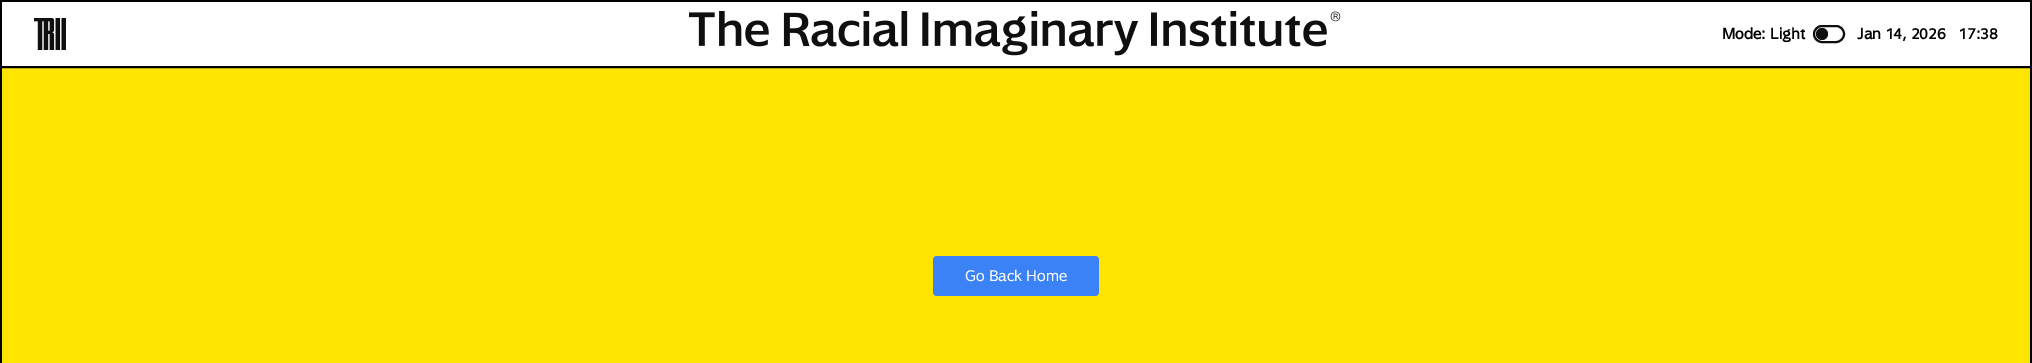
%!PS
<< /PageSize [2032 363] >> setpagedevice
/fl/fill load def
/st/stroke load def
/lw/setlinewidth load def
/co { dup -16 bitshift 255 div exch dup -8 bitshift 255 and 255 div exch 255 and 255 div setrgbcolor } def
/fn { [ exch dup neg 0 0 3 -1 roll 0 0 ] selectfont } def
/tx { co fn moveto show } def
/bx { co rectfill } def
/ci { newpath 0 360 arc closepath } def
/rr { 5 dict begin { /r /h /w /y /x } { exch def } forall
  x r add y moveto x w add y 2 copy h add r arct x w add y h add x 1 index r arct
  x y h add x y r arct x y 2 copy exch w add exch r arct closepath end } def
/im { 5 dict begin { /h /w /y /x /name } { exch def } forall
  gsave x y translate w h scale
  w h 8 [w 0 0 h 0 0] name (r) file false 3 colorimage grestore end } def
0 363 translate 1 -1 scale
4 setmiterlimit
0 0 2032 363 16#FFE400 bx
16#000000 co
2 lw
1 1 2030 66 rectstroke
2 2 2028 64 16#FFFFFF bx
(media/1.raw) 34 18 32 32 im
(media/2.raw) 689 11 652 45 im
16#0F0F10 co
1814 26 30 16 8 rr st
1822 34 6 ci fl
2030 68 2 295 16#000000 bx
0 68 2 295 16#000000 bx
16#3B82F6 co
933 256 166 40 4 rr fl
(Mode: Light) 1722 39 /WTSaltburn-Bold 16 16#000000 tx
(Jan 14, 2026) 1857 39 /WTSaltburn-Bold 16 16#000000 tx
(17:38) 1958 39 /WTSaltburn-Bold 16 16#000000 tx
(Go Back Home) 965 281 /WTSaltburn-Regular 16 16#FFFFFF tx
showpage
